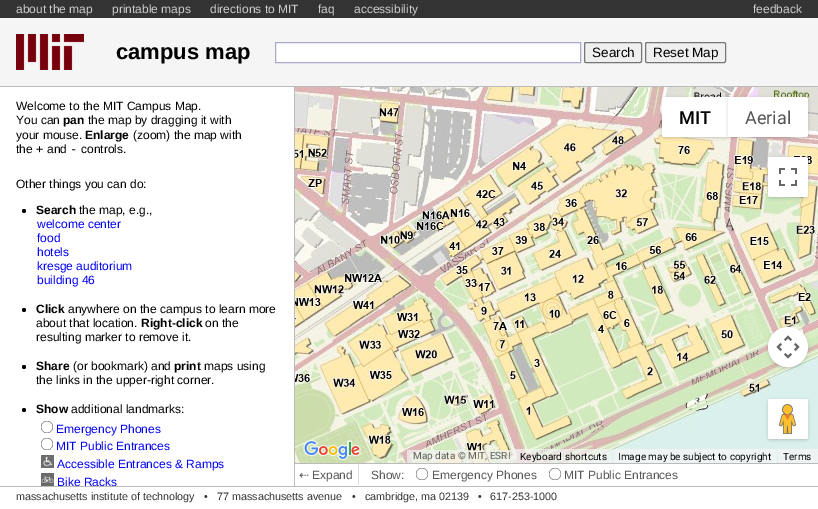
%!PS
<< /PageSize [818 509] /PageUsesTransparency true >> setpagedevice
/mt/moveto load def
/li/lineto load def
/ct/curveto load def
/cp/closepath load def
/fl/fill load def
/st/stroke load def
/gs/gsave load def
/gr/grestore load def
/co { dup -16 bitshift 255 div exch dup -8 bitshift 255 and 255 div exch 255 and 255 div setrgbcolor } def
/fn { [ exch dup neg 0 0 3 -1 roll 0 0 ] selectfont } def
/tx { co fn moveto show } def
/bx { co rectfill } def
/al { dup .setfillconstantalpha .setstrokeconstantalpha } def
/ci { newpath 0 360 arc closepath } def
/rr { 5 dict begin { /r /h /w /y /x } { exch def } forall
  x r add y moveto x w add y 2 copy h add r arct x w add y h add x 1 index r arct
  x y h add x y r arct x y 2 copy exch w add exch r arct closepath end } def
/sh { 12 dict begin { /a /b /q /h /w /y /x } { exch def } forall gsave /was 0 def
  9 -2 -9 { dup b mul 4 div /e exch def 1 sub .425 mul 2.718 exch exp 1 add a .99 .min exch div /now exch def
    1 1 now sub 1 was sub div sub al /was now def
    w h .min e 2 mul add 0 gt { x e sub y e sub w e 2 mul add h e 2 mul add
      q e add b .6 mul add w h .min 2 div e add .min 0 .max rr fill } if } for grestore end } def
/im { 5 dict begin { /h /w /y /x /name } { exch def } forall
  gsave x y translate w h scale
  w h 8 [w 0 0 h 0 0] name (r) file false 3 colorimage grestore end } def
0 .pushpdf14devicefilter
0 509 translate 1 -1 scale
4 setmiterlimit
0 0 818 509 16#FFFFFF bx
0 0 818 18 16#333333 bx
0 18 818 68 16#F5F5F5 bx
0 86 818 1 16#BBBBBB bx
(media/1.raw) 16 34 68 36 im
16#FFFFFF co
275.5 42.5 mt 580.5 42.5 li 580.5 62.5 li 275.5 62.5 li cp gs fl gr
16#AAAACC co
st
16#EFEFEF co
584.5 42.5 57 20 1.5 rr gs fl gr
16#767676 co
st
16#EFEFEF co
645.5 42.5 80 20 1.5 rr gs fl gr
16#767676 co
st
0 486 818 1 16#BBBBBB bx
294 463 524 1 16#BBBBBB bx
294 87 1 399 16#BBBBBB bx
16#000000 co
24 211 2 ci fl
24 310 2 ci fl
24 367 2 ci fl
24 410 2 ci fl
(media/2.raw) 41 421 12 12 im
(media/2.raw) 41 438 12 12 im
(media/3.raw) 41 455 13 13 im
(media/4.raw) 41 473 13 13 im
(media/5.raw) 295 87 236 43 im
(media/6.raw) 531 87 256 43 im
(media/7.raw) 787 87 31 43 im
(media/8.raw) 295 130 236 256 im
(media/9.raw) 531 130 256 256 im
(media/10.raw) 787 130 31 256 im
(media/11.raw) 295 386 236 77 im
(media/12.raw) 531 386 256 77 im
787 386 31 63 16#DAF0ED bx
16#000000 co
663 99 64 38 1 2 .3 sh
16#FFFFFF co
664 97 mt 728 97 li 728 137 li 664 137 li 663 137 662 136 662 135 ct 662 99 li 662 98 663 97 664 97 ct cp fl
16#000000 co
729 99 78 38 1 2 .3 sh
16#FFFFFF co
728 97 mt 806 97 li 807 97 808 98 808 99 ct 808 135 li 808 136 807 137 806 137 ct 728 137 li cp fl
16#000000 co
769 159 38 38 1 2 .3 sh
16#FFFFFF co
768 157 40 40 2 rr fl
(media/13.raw) 779 168 18 18 im
16#000000 co
769 329 38 38 19 2 .3 sh
16#FFFFFF co
788 347 20 ci fl
(media/14.raw) 776 335 24 24 im
16#000000 co
769 401 38 38 1 2 .3 sh
16#FFFFFF co
768 399 40 40 2 rr fl
(media/15.raw) 779 404 17 30 im
(media/16.raw) 303 440 59 21 im
0.7 al
407 450 109 13 16#F3F3F3 bx
515 449 97 14 16#F5F5F5 bx
613 449 164 14 16#F5F5F5 bx
1 al
778 449 40 14 16#EDF4F3 bx
358 464 1 21 16#DDDDDD bx
(media/2.raw) 416 468 12 12 im
(media/2.raw) 549 468 12 12 im
(about the map) 16 13 /LiberationSans-Regular 12 16#CCCCCC tx
(printable maps) 112 13 /LiberationSans-Regular 12 16#CCCCCC tx
(directions to MIT) 210 13 /LiberationSans-Regular 12 16#CCCCCC tx
(faq) 318 13 /LiberationSans-Regular 12 16#CCCCCC tx
(accessibility) 354 13 /LiberationSans-Regular 12 16#CCCCCC tx
(feedback) 753 13 /LiberationSans-Regular 12 16#CCCCCC tx
(campus map) 116 59 /LiberationSans-Bold 22 16#000000 tx
(Search) 592 57 /LiberationSans-Regular 13.5 16#000000 tx
(Reset Map) 653 57 /LiberationSans-Regular 13.5 16#000000 tx
(Welcome to the MIT Campus Map.) 16 110 /LiberationSans-Regular 12 16#000000 tx
(You can) 16 124 /LiberationSans-Regular 12 16#000000 tx
(pan) 63 124 /LiberationSans-Bold 12 16#000000 tx
(the map by dragging it with) 88 124 /LiberationSans-Regular 12 16#000000 tx
(your mouse.) 16 139 /LiberationSans-Regular 12 16#000000 tx
(Enlarge) 85 139 /LiberationSans-Bold 12 16#000000 tx
(\(zoom\) the map with) 133 139 /LiberationSans-Regular 12 16#000000 tx
(the) 16 153 /LiberationSans-Regular 12 16#000000 tx
(+) 36 153 /DejaVuSansMono-Regular 12 16#000000 tx
(and) 47 153 /LiberationSans-Regular 12 16#000000 tx
(-) 70 153 /DejaVuSansMono-Regular 12 16#000000 tx
(controls.) 81 153 /LiberationSans-Regular 12 16#000000 tx
(Other things you can do:) 16 188 /LiberationSans-Regular 12 16#000000 tx
(Search) 36 214 /LiberationSans-Bold 12 16#000000 tx
(the map, e.g.,) 79 214 /LiberationSans-Regular 12 16#000000 tx
(welcome center) 37 228 /LiberationSans-Regular 12 16#0000FF tx
(food) 37 242 /LiberationSans-Regular 12 16#0000FF tx
(hotels) 37 256 /LiberationSans-Regular 12 16#0000FF tx
(kresge auditorium) 37 270 /LiberationSans-Regular 12 16#0000FF tx
(building 46) 37 284 /LiberationSans-Regular 12 16#0000FF tx
(Click) 36 313 /LiberationSans-Bold 12 16#000000 tx
(anywhere on the campus to learn more) 68 313 /LiberationSans-Regular 12 16#000000 tx
(about that location.) 36 327 /LiberationSans-Regular 12 16#000000 tx
(Right-click) 141 327 /LiberationSans-Bold 12 16#000000 tx
(on the) 205 327 /LiberationSans-Regular 12 16#000000 tx
(resulting marker to remove it.) 36 341 /LiberationSans-Regular 12 16#000000 tx
(Share) 36 370 /LiberationSans-Bold 12 16#000000 tx
(\(or bookmark\) and) 73 370 /LiberationSans-Regular 12 16#000000 tx
(print) 174 370 /LiberationSans-Bold 12 16#000000 tx
(maps using) 204 370 /LiberationSans-Regular 12 16#000000 tx
(the links in the upper-right corner.) 36 384 /LiberationSans-Regular 12 16#000000 tx
(Show) 36 413 /LiberationSans-Bold 12 16#000000 tx
(additional landmarks:) 71 413 /LiberationSans-Regular 12 16#000000 tx
(Emergency Phones) 56 433 /LiberationSans-Regular 12 16#0000FF tx
(MIT Public Entrances) 56 450 /LiberationSans-Regular 12 16#0000FF tx
(Accessible Entrances & Ramps) 57 468 /LiberationSans-Regular 12 16#0000FF tx
gs
0 87 294 399 rectclip
(Bike Racks) 57 486 /LiberationSans-Regular 12 16#0000FF tx
gr
(MIT) 679 124 /Roboto-Medium 18 16#000000 tx
(Aerial) 745 124 /Roboto-Regular 18 16#565656 tx
(Map data © MIT, ESRI) 413 459 /Roboto-Regular 10 16#5F5F5C tx
(Keyboard shortcuts) 520 460 /Roboto-Regular 10 16#000000 tx
(Image may be subject to copyright) 618 460 /Roboto-Regular 10 16#000000 tx
(Terms) 783 460 /Roboto-Regular 10 16#000000 tx
(⇠) 299 479 /DejaVuSans-Regular 12 16#565656 tx
(Expand) 312 479 /LiberationSans-Regular 12 16#565656 tx
(Show:) 371 479 /LiberationSans-Regular 12 16#565656 tx
(Emergency Phones) 432 479 /LiberationSans-Regular 12 16#565656 tx
(MIT Public Entrances) 564 479 /LiberationSans-Regular 12 16#565656 tx
(massachusetts institute of technology   •) 16 500 /LiberationSans-Regular 10.75 16#333333 tx
(77 massachusetts avenue) 217 500 /LiberationSans-Regular 10.75 16#333333 tx
(•   cambridge, ma 02139   •   617-253-1000) 352 500 /LiberationSans-Regular 10.75 16#333333 tx
.poppdf14devicefilter showpage
